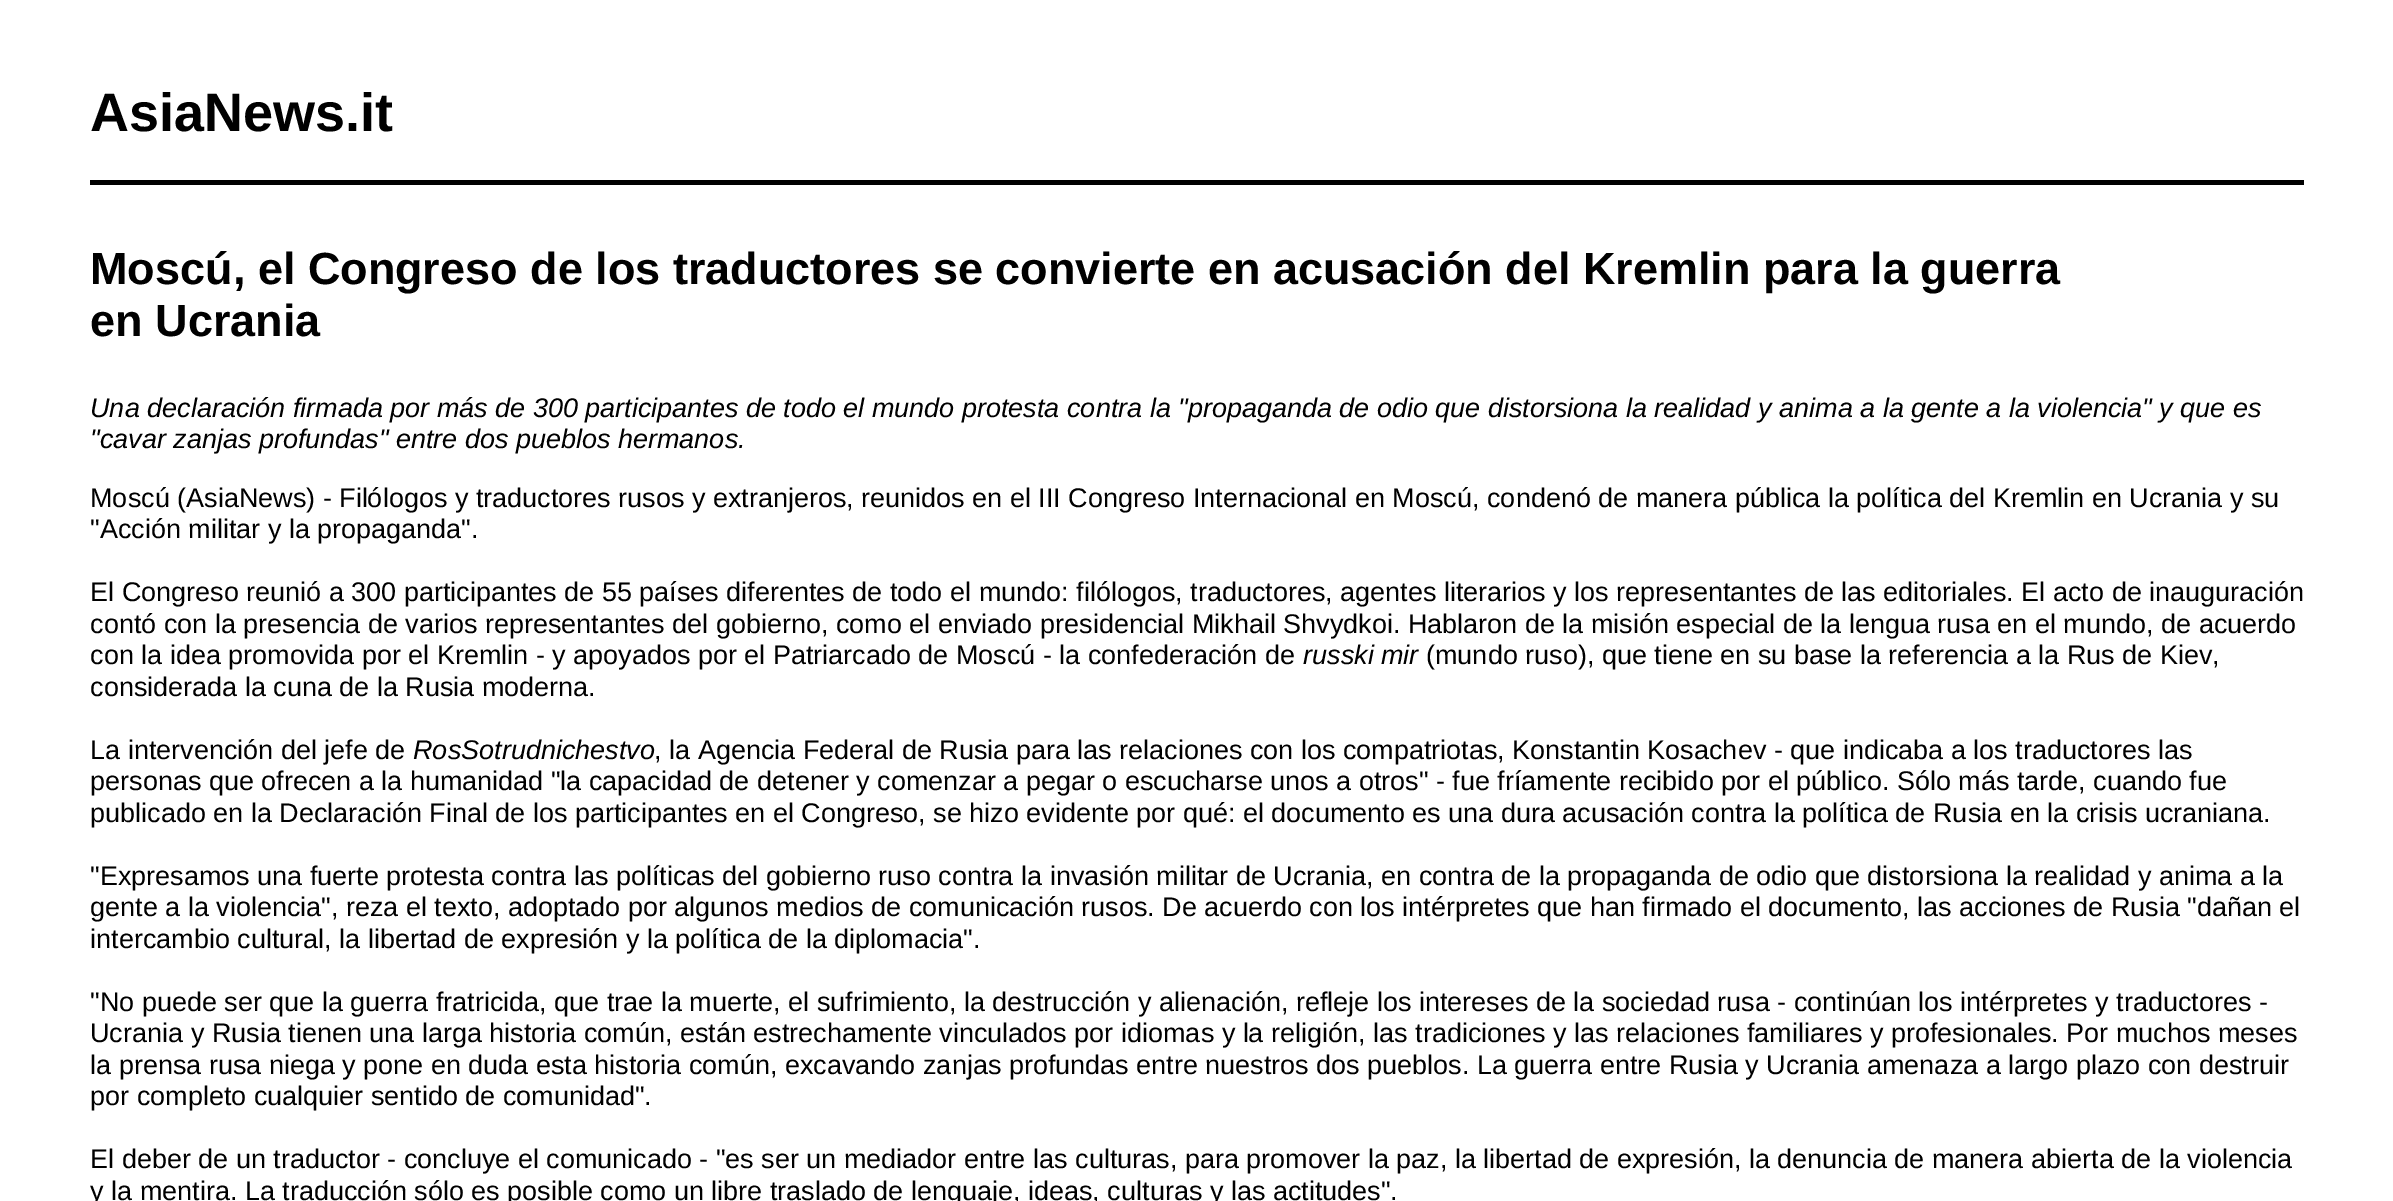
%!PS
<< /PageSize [2393 1201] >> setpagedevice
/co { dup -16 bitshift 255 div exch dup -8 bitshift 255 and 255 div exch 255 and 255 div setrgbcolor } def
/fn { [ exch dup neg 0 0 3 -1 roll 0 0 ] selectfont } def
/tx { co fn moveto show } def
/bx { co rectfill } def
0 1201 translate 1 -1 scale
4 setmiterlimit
0 0 2393 1201 16#FFFFFF bx
90 180 2214 5 16#000000 bx
(AsiaNews.it) 90 131 /LiberationSans-Bold 54 16#000000 tx
(Moscú, el Congreso de los traductores se convierte en acusación del Kremlin para la guerra) 90 284 /LiberationSans-Bold 45 16#000000 tx
(en Ucrania) 90 336 /LiberationSans-Bold 45 16#000000 tx
(Una declaración firmada por más de 300 participantes de todo el mundo protesta contra la "propaganda de odio que distorsiona la realidad y anima a la gente a la violencia" y que es) 90 417 /LiberationSans-Italic 27 16#000000 tx
("cavar zanjas profundas" entre dos pueblos hermanos.) 90 448 /LiberationSans-Italic 27 16#000000 tx
(Moscú \(AsiaNews\) - Filólogos y traductores rusos y extranjeros, reunidos en el III Congreso Internacional en Moscú, condenó de manera pública la política del Kremlin en Ucrania y su) 90 507 /LiberationSans-Regular 27 16#000000 tx
("Acción militar y la propaganda".) 90 538 /LiberationSans-Regular 27 16#000000 tx
(El Congreso reunió a 300 participantes de 55 países diferentes de todo el mundo: filólogos, traductores, agentes literarios y los representantes de las editoriales. El acto de inauguración) 90 601 /LiberationSans-Regular 27 16#000000 tx
(contó con la presencia de varios representantes del gobierno, como el enviado presidencial Mikhail Shvydkoi. Hablaron de la misión especial de la lengua rusa en el mundo, de acuerdo) 90 633 /LiberationSans-Regular 27 16#000000 tx
(con la idea promovida por el Kremlin - y apoyados por el Patriarcado de Moscú - la confederación de) 90 664 /LiberationSans-Regular 27 16#000000 tx
(russki mir) 1303 664 /LiberationSans-Italic 27 16#000000 tx
(\(mundo ruso\), que tiene en su base la referencia a la Rus de Kiev,) 1426 664 /LiberationSans-Regular 27 16#000000 tx
(considerada la cuna de la Rusia moderna.) 90 696 /LiberationSans-Regular 27 16#000000 tx
(La intervención del jefe de) 90 759 /LiberationSans-Regular 27 16#000000 tx
(RosSotrudnichestvo) 413 759 /LiberationSans-Italic 27 16#000000 tx
(, la Agencia Federal de Rusia para las relaciones con los compatriotas, Konstantin Kosachev - que indicaba a los traductores las) 654 759 /LiberationSans-Regular 27 16#000000 tx
(personas que ofrecen a la humanidad "la capacidad de detener y comenzar a pegar o escucharse unos a otros" - fue fríamente recibido por el público. Sólo más tarde, cuando fue) 90 790 /LiberationSans-Regular 27 16#000000 tx
(publicado en la Declaración Final de los participantes en el Congreso, se hizo evidente por qué: el documento es una dura acusación contra la política de Rusia en la crisis ucraniana.) 90 822 /LiberationSans-Regular 27 16#000000 tx
("Expresamos una fuerte protesta contra las políticas del gobierno ruso contra la invasión militar de Ucrania, en contra de la propaganda de odio que distorsiona la realidad y anima a la) 90 885 /LiberationSans-Regular 27 16#000000 tx
(gente a la violencia", reza el texto, adoptado por algunos medios de comunicación rusos. De acuerdo con los intérpretes que han firmado el documento, las acciones de Rusia "dañan el) 90 916 /LiberationSans-Regular 27 16#000000 tx
(intercambio cultural, la libertad de expresión y la política de la diplomacia".) 90 948 /LiberationSans-Regular 27 16#000000 tx
("No puede ser que la guerra fratricida, que trae la muerte, el sufrimiento, la destrucción y alienación, refleje los intereses de la sociedad rusa - continúan los intérpretes y traductores -) 90 1011 /LiberationSans-Regular 27 16#000000 tx
(Ucrania y Rusia tienen una larga historia común, están estrechamente vinculados por idiomas y la religión, las tradiciones y las relaciones familiares y profesionales. Por muchos meses) 90 1042 /LiberationSans-Regular 27 16#000000 tx
(la prensa rusa niega y pone en duda esta historia común, excavando zanjas profundas entre nuestros dos pueblos. La guerra entre Rusia y Ucrania amenaza a largo plazo con destruir) 90 1074 /LiberationSans-Regular 27 16#000000 tx
(por completo cualquier sentido de comunidad".) 90 1105 /LiberationSans-Regular 27 16#000000 tx
(El deber de un traductor - concluye el comunicado - "es ser un mediador entre las culturas, para promover la paz, la libertad de expresión, la denuncia de manera abierta de la violencia) 90 1168 /LiberationSans-Regular 27 16#000000 tx
(y la mentira. La traducción sólo es posible como un libre traslado de lenguaje, ideas, culturas y las actitudes".) 90 1200 /LiberationSans-Regular 27 16#000000 tx
showpage
